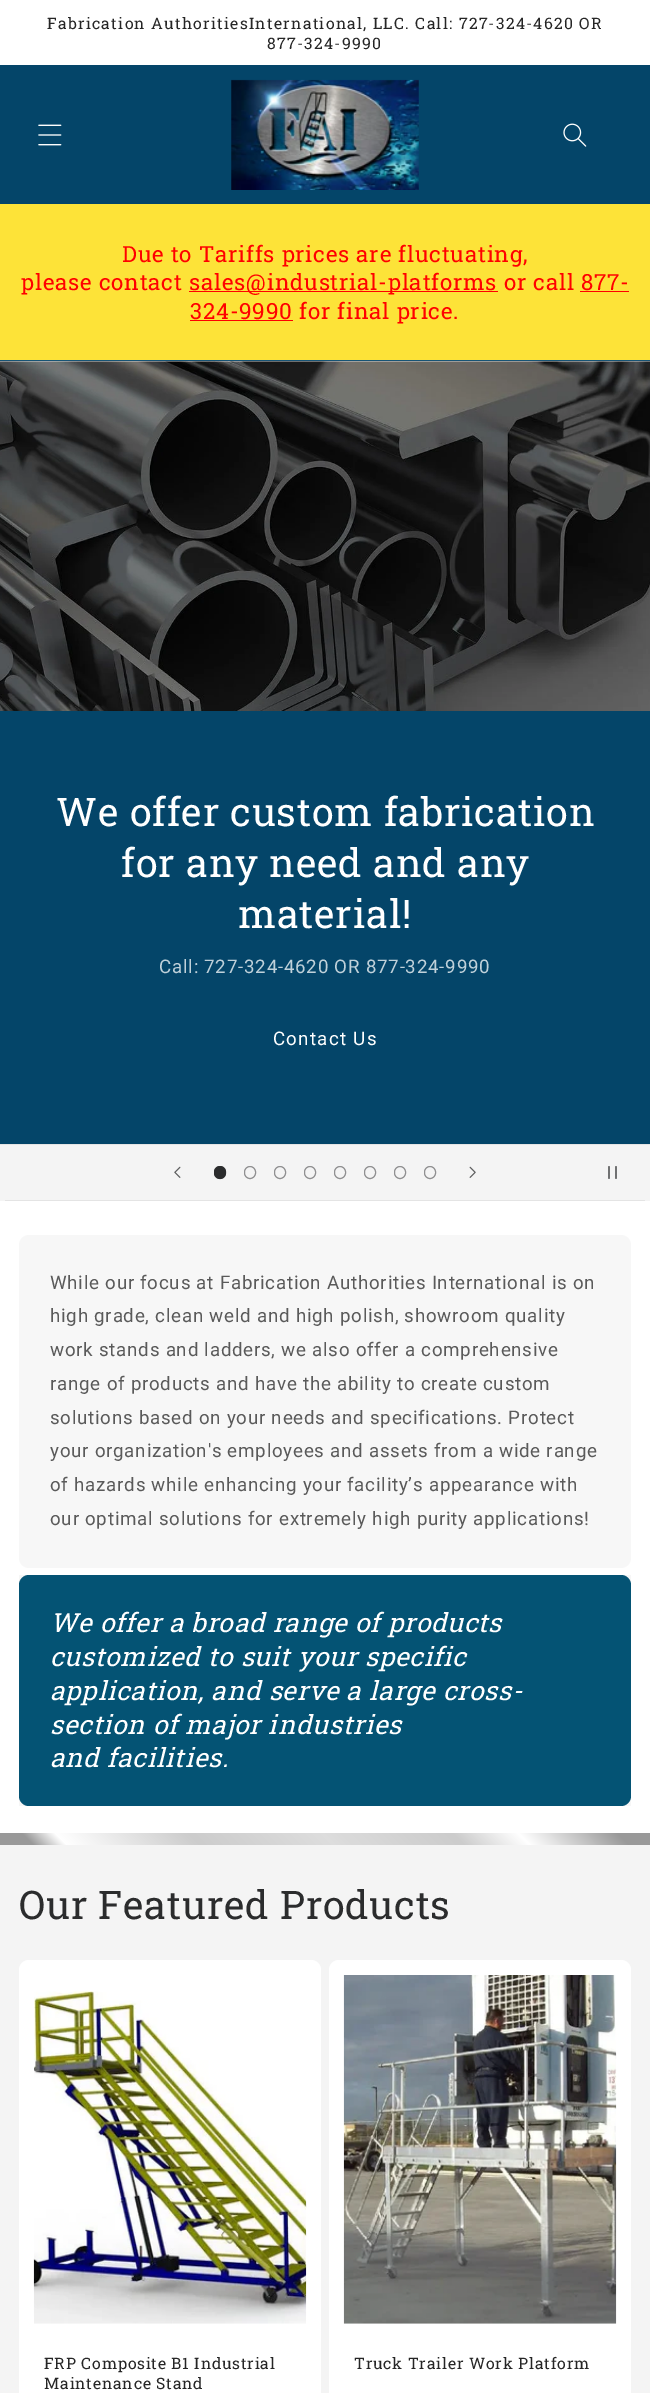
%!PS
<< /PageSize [650 2393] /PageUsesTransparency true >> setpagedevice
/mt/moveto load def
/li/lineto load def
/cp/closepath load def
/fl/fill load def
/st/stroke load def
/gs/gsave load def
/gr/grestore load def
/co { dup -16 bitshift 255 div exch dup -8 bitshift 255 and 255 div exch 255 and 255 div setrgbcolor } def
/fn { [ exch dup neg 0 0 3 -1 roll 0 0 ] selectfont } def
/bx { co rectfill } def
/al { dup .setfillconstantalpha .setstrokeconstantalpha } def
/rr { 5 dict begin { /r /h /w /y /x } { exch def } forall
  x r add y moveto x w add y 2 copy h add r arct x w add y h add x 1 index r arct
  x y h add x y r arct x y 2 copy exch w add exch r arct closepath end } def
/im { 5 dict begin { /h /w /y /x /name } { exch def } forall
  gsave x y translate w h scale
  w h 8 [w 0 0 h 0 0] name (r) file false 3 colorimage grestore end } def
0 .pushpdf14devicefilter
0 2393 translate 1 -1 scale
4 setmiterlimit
0 0 650 2393 16#F4F4F4 bx
0 0 650 65 16#FFFFFF bx
0 65 650 139 16#044569 bx
0 360 650 1 16#185475 bx
(media/1.raw) 38 124 24 22 im
(media/2.raw) 231 79 188 111 im
(media/3.raw) 563 123 24 24 im
0 204 650 156 16#FDE338 bx
189 291 309 1 16#FF0000 bx
580 291 49 1 16#FF0000 bx
190 320 103 1 16#FF0000 bx
0 361 650 1 16#E0E0E0 bx
(media/4.raw) 0 361 650 350 im
0 711 650 433 16#044569 bx
0 1144 650 1 16#E4E4E4 bx
5 1200 640 1 16#E4E4E4 bx
(media/5.raw) 174 1166 7 12 im
16#2B2C2D co
214 1166 12 13 6 rr fl
0.5 al
214.5 1166.5 11 12 5.5 rr st
1 al
16#909091 co
244.5 1166.5 11 12 5.5 rr st
274.5 1166.5 11 12 5.5 rr st
304.5 1166.5 11 12 5.5 rr st
334.5 1166.5 11 12 5.5 rr st
364.5 1166.5 11 12 5.5 rr st
394.5 1166.5 11 12 5.5 rr st
424.5 1166.5 11 12 5.5 rr st
(media/6.raw) 469 1166 7 12 im
(media/7.raw) 608 1166 9 13 im
0 1201 650 632 16#FFFFFF bx
16#F7F7F7 co
19 1235 612 333 10 rr fl
16#035577 co
19 1575 612 231 10 rr fl
0.04 al
19 1575 612 231 16#262626 bx
1 al
gs 0 1833 mt 650 1833 li 650 1845 li 0 1845 li cp clip newpath
<< /ShadingType 2 /ColorSpace /DeviceRGB /Coords [159 2004 491 1673] /Extend [true true] /Function << /FunctionType 3 /Domain [0 1] /Functions [<< /FunctionType 2 /Domain [0 1] /C0 [.6 .6 .6] /C1 [.6 .6 .6] /N 1 >> << /FunctionType 2 /Domain [0 1] /C0 [.6 .6 .6] /C1 [1 1 1] /N 1 >> << /FunctionType 2 /Domain [0 1] /C0 [1 1 1] /C1 [.8 .8 .8] /N 1 >> << /FunctionType 2 /Domain [0 1] /C0 [.8 .8 .8] /C1 [.867 .867 .867] /N 1 >> << /FunctionType 2 /Domain [0 1] /C0 [.867 .867 .867] /C1 [.8 .8 .8] /N 1 >> << /FunctionType 2 /Domain [0 1] /C0 [.8 .8 .8] /C1 [1 1 1] /N 1 >> << /FunctionType 2 /Domain [0 1] /C0 [1 1 1] /C1 [.6 .6 .6] /N 1 >> << /FunctionType 2 /Domain [0 1] /C0 [.6 .6 .6] /C1 [.6 .6 .6] /N 1 >>] /Bounds [.05 .1 .3 .5 .7 .8 .95] /Encode [0 1 0 1 0 1 0 1 0 1 0 1 0 1 0 1] >> >> shfill gr
16#FFFFFF co
19 1960 302 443 10 rr fl
(media/8.raw) 33 1991 274 333 im
329 1960 302 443 10 rr fl
(media/9.raw) 343 1975 274 349 im
/RobotoSlab-Regular 15.75 fn
16#262626 co
47 29 mt 1.25 0 (Fabrication AuthoritiesInternational, LLC. Call: 727-324-4620 OR) ashow
267 49 mt 1.25 0 (877-324-9990) ashow
/RobotoSlab-Regular 22.3 fn
16#FF0000 co
122 262 mt .8 0 (Due to Tariffs prices are fluctuating,) ashow
21 290 mt .8 0 (please contact) ashow
189 290 mt .8 0 (sales@industrial-platforms or call 877-) ashow
190 319 mt .8 0 (324-9990 for final price.) ashow
/RobotoSlab-Regular 39.4 fn
16#FFFFFF co
56 826 mt .8 0 (We offer custom fabrication) ashow
121 877 mt .8 0 (for any need and any) ashow
238 928 mt .8 0 (material!) ashow
/Roboto-Regular 18.75 fn
16#C0D1DA co
159 973 mt .75 0 (Call: 727-324-4620 OR 877-324-9990) ashow
16#FFFFFF co
273 1045 mt 1.25 0 (Contact Us) ashow
16#5A5A5A co
50 1289 mt .75 0 (While our focus at Fabrication Authorities International is on) ashow
50 1322 mt .75 0 (high grade, clean weld and high polish, showroom quality) ashow
50 1356 mt .75 0 (work stands and ladders, we also offer a comprehensive) ashow
50 1390 mt .75 0 (range of products and have the ability to create custom) ashow
50 1424 mt .75 0 (solutions based on your needs and specifications. Protect) ashow
50 1457 mt .75 0 (your organization's employees and assets from a wide range) ashow
50 1491 mt .75 0 (of hazards while enhancing your facility’s appearance with) ashow
50 1525 mt .75 0 (our optimal solutions for extremely high purity applications!) ashow
/RobotoSlab-Italic 26.25 fn
16#FFFFFF co
50 1632 mt .8 0 (We offer a broad range of products) ashow
50 1666 mt .8 0 (customized to suit your specific) ashow
50 1700 mt .8 0 (application, and serve a large cross-) ashow
50 1734 mt .8 0 (section of major industries) ashow
50 1767 mt .8 0 (and facilities.) ashow
/RobotoSlab-Regular 39.4 fn
16#2B2C2D co
19 1919 mt .8 0 (Our Featured Products) ashow
/RobotoSlab-Regular 15.75 fn
16#262626 co
44 2369 mt .8 0 (FRP Composite B1 Industrial) ashow
44 2389 mt .8 0 (Maintenance Stand) ashow
354 2369 mt .8 0 (Truck Trailer Work Platform) ashow
.poppdf14devicefilter showpage
